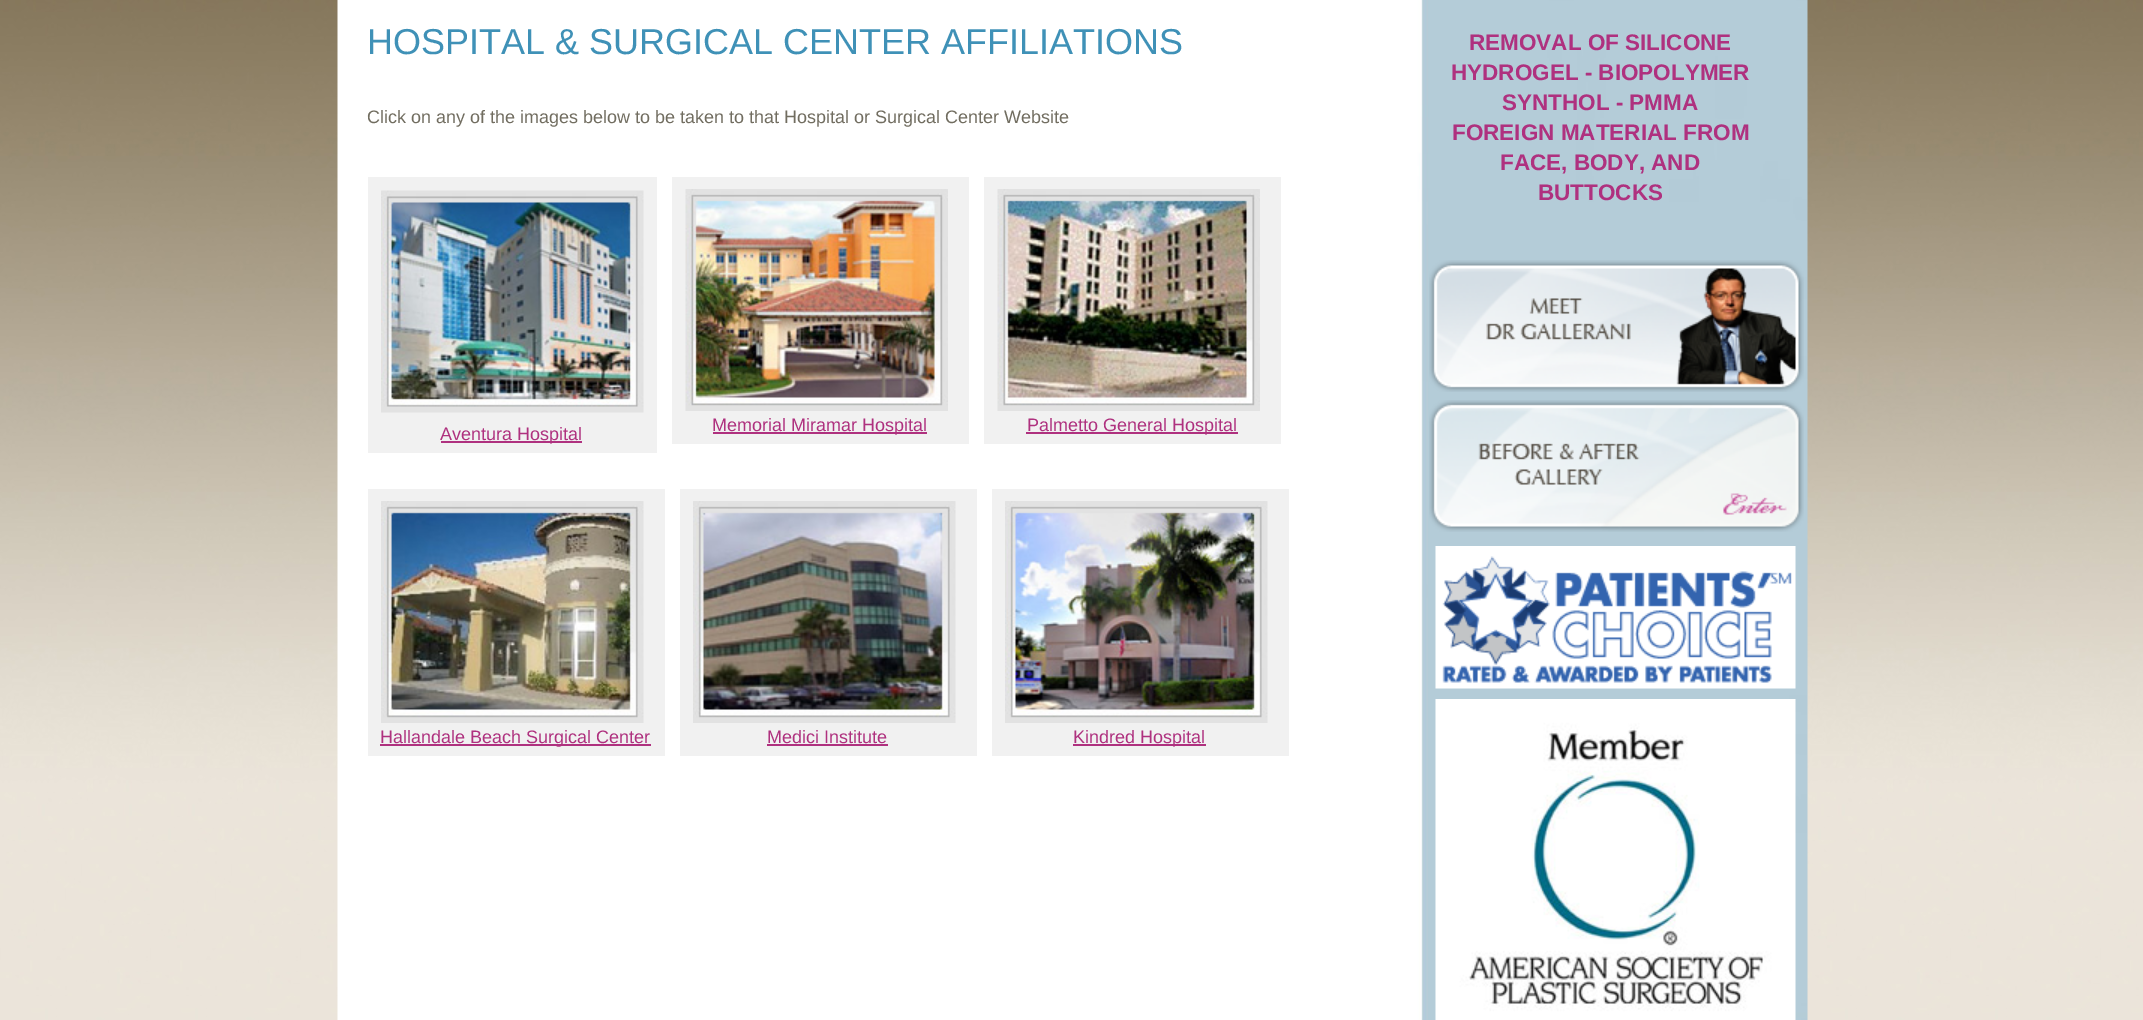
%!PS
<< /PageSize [2143 1020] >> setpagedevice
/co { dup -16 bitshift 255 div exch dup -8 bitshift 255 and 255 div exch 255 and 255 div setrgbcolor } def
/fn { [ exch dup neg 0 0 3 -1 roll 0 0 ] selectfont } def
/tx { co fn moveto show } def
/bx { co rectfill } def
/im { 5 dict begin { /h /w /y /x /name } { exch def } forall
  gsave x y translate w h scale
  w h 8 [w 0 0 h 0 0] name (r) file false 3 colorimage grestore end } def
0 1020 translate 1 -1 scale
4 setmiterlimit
0 0 2143 1020 16#FFFFFF bx
(media/1.raw) 0 0 2143 1020 im
(media/2.raw) 337 0 1471 1020 im
368 177 289 276 16#F1F1F1 bx
(media/3.raw) 381 190 263 223 im
441 441 141 2 16#AF317F bx
672 177 297 267 16#F1F1F1 bx
(media/4.raw) 685 189 263 222 im
713 432 214 2 16#AF317F bx
984 177 297 267 16#F1F1F1 bx
(media/5.raw) 997 189 263 222 im
1026 432 212 2 16#AF317F bx
368 489 297 267 16#F1F1F1 bx
(media/6.raw) 381 501 263 222 im
380 744 271 2 16#AF317F bx
680 489 297 267 16#F1F1F1 bx
(media/7.raw) 693 501 263 222 im
767 744 121 2 16#AF317F bx
992 489 297 267 16#F1F1F1 bx
(media/8.raw) 1005 501 263 222 im
1073 744 133 2 16#AF317F bx
(media/9.raw) 1429 260 375 132 im
(media/10.raw) 1429 400 375 132 im
(media/11.raw) 1435 546 361 143 im
(media/12.raw) 1435 699 361 321 im
(HOSPITAL & SURGICAL CENTER AFFILIATIONS) 367 54 /LiberationSans-Regular 36 16#3F91B7 tx
(Click on any of the images below to be taken to that Hospital or Surgical Center Website) 367 123 /LiberationSans-Regular 18 16#716D60 tx
(Aventura Hospital) 440 440 /LiberationSans-Regular 18 16#AF317F tx
(Memorial Miramar Hospital) 712 431 /LiberationSans-Regular 18 16#AF317F tx
(Palmetto General Hospital) 1027 431 /LiberationSans-Regular 18 16#AF317F tx
(Hallandale Beach Surgical Center) 380 743 /LiberationSans-Regular 18 16#AF317F tx
(Medici Institute) 767 743 /LiberationSans-Regular 18 16#AF317F tx
(Kindred Hospital) 1073 743 /LiberationSans-Regular 18 16#AF317F tx
(REMOVAL OF SILICONE) 1469 50 /LiberationSans-Bold 22.5 16#AF317F tx
(HYDROGEL - BIOPOLYMER) 1451 80 /LiberationSans-Bold 22.5 16#AF317F tx
(SYNTHOL - PMMA) 1502 110 /LiberationSans-Bold 22.5 16#AF317F tx
(FOREIGN MATERIAL FROM) 1452 140 /LiberationSans-Bold 22.5 16#AF317F tx
(FACE, BODY, AND) 1500 170 /LiberationSans-Bold 22.5 16#AF317F tx
(BUTTOCKS) 1538 200 /LiberationSans-Bold 22.5 16#AF317F tx
showpage
